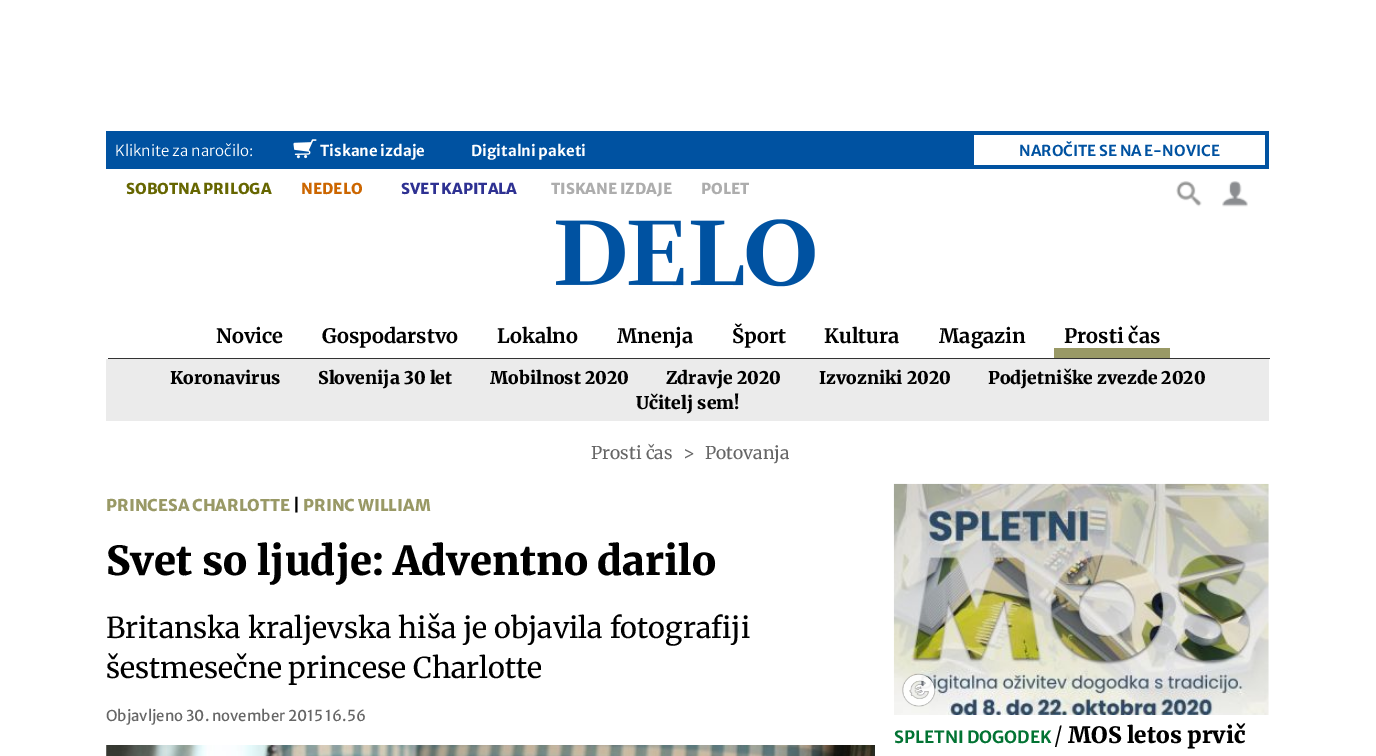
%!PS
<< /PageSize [1376 756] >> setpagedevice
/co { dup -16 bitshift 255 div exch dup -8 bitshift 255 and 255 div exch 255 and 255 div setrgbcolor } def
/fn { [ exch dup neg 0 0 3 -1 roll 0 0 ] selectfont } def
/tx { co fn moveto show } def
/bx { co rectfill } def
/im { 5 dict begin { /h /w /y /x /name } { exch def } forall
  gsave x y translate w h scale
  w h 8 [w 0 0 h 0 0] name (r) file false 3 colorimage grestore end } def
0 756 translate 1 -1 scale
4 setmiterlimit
0 0 1376 756 16#FFFFFF bx
106 131 1163 38 16#0052A1 bx
(media/1.raw) 293 139 24 20 im
974 135 291 30 16#FFFFFF bx
(media/2.raw) 556 219 259 68 im
108 358 1162 1 16#333333 bx
1054 348 116 10 16#999966 bx
(media/3.raw) 1176 181 26 26 im
(media/4.raw) 1222 181 26 26 im
106 359 1163 62 16#EBEBEB bx
(media/5.raw) 106 745 769 11 im
(media/6.raw) 893 483 376 232 im
(media/7.raw) 902 673 34 34 im
(Kliknite za naročilo:) 115 156 /MerriweatherSans-Light 15 16#FFFFFF tx
(Tiskane izdaje) 320 156 /MerriweatherSans-Bold 15 16#FFFFFF tx
(Digitalni paketi) 471 156 /MerriweatherSans-Bold 15 16#FFFFFF tx
(NAROČITE SE NA E-NOVICE) 1019 156 /MerriweatherSans-Bold 15 16#0052A1 tx
(SOBOTNA PRILOGA) 126 194 /MerriweatherSans-ExtraBold 15 16#666600 tx
(NEDELO) 301 194 /MerriweatherSans-ExtraBold 15 16#CC6600 tx
(SVET KAPITALA) 401 194 /MerriweatherSans-ExtraBold 15 16#2E3192 tx
(TISKANE IZDAJE) 551 194 /MerriweatherSans-ExtraBold 15 16#ADADAD tx
(POLET) 701 194 /MerriweatherSans-ExtraBold 15 16#ADADAD tx
(Novice) 216 343 /Merriweather-Bold 20 16#000000 tx
(Gospodarstvo) 322 343 /Merriweather-Bold 20 16#000000 tx
(Lokalno) 497 343 /Merriweather-Bold 20 16#000000 tx
(Mnenja) 617 343 /Merriweather-Bold 20 16#000000 tx
(Šport) 732 343 /Merriweather-Bold 20 16#000000 tx
(Kultura) 824 343 /Merriweather-Bold 20 16#000000 tx
(Magazin) 939 343 /Merriweather-Bold 20 16#000000 tx
(Prosti čas) 1064 343 /Merriweather-Bold 20 16#000000 tx
(Koronavirus) 170 384 /Merriweather-Black 17.5 16#000000 tx
(Slovenija 30 let) 318 384 /Merriweather-Black 17.5 16#000000 tx
(Mobilnost 2020) 490 384 /Merriweather-Black 17.5 16#000000 tx
(Zdravje 2020) 666 384 /Merriweather-Black 17.5 16#000000 tx
(Izvozniki 2020) 819 384 /Merriweather-Black 17.5 16#000000 tx
(Podjetniške zvezde 2020) 988 384 /Merriweather-Black 17.5 16#000000 tx
(Učitelj sem!) 636 409 /Merriweather-Black 17.5 16#000000 tx
(Prosti čas) 591 459 /Merriweather-Regular 17.5 16#666666 tx
(>) 683 459 /Merriweather-Regular 17.5 16#666666 tx
(Potovanja) 705 459 /Merriweather-Regular 17.5 16#666666 tx
(PRINCESA CHARLOTTE) 106 511 /MerriweatherSans-ExtraBold 16.25 16#999966 tx
(|) 293 511 /MerriweatherSans-ExtraBold 16.25 16#000000 tx
(PRINC WILLIAM) 303 511 /MerriweatherSans-ExtraBold 16.25 16#999966 tx
(Svet so ljudje: Adventno darilo) 106 575 /Merriweather-Black 40 16#000000 tx
(Britanska kraljevska hiša je objavila fotografiji) 106 638 /Merriweather-Regular 28.75 16#000000 tx
(šestmesečne princese Charlotte) 106 678 /Merriweather-Regular 28.75 16#000000 tx
(Objavljeno 30. november 2015 16.56) 106 721 /MerriweatherSans-Regular 15 16#666666 tx
(SPLETNI DOGODEK) 894 743 /MerriweatherSans-Bold 16.9 16#027333 tx
(/) 1054 743 /Merriweather-Light 22.5 16#000000 tx
(MOS letos prvič) 1068 743 /Merriweather-Black 22.5 16#000000 tx
showpage
